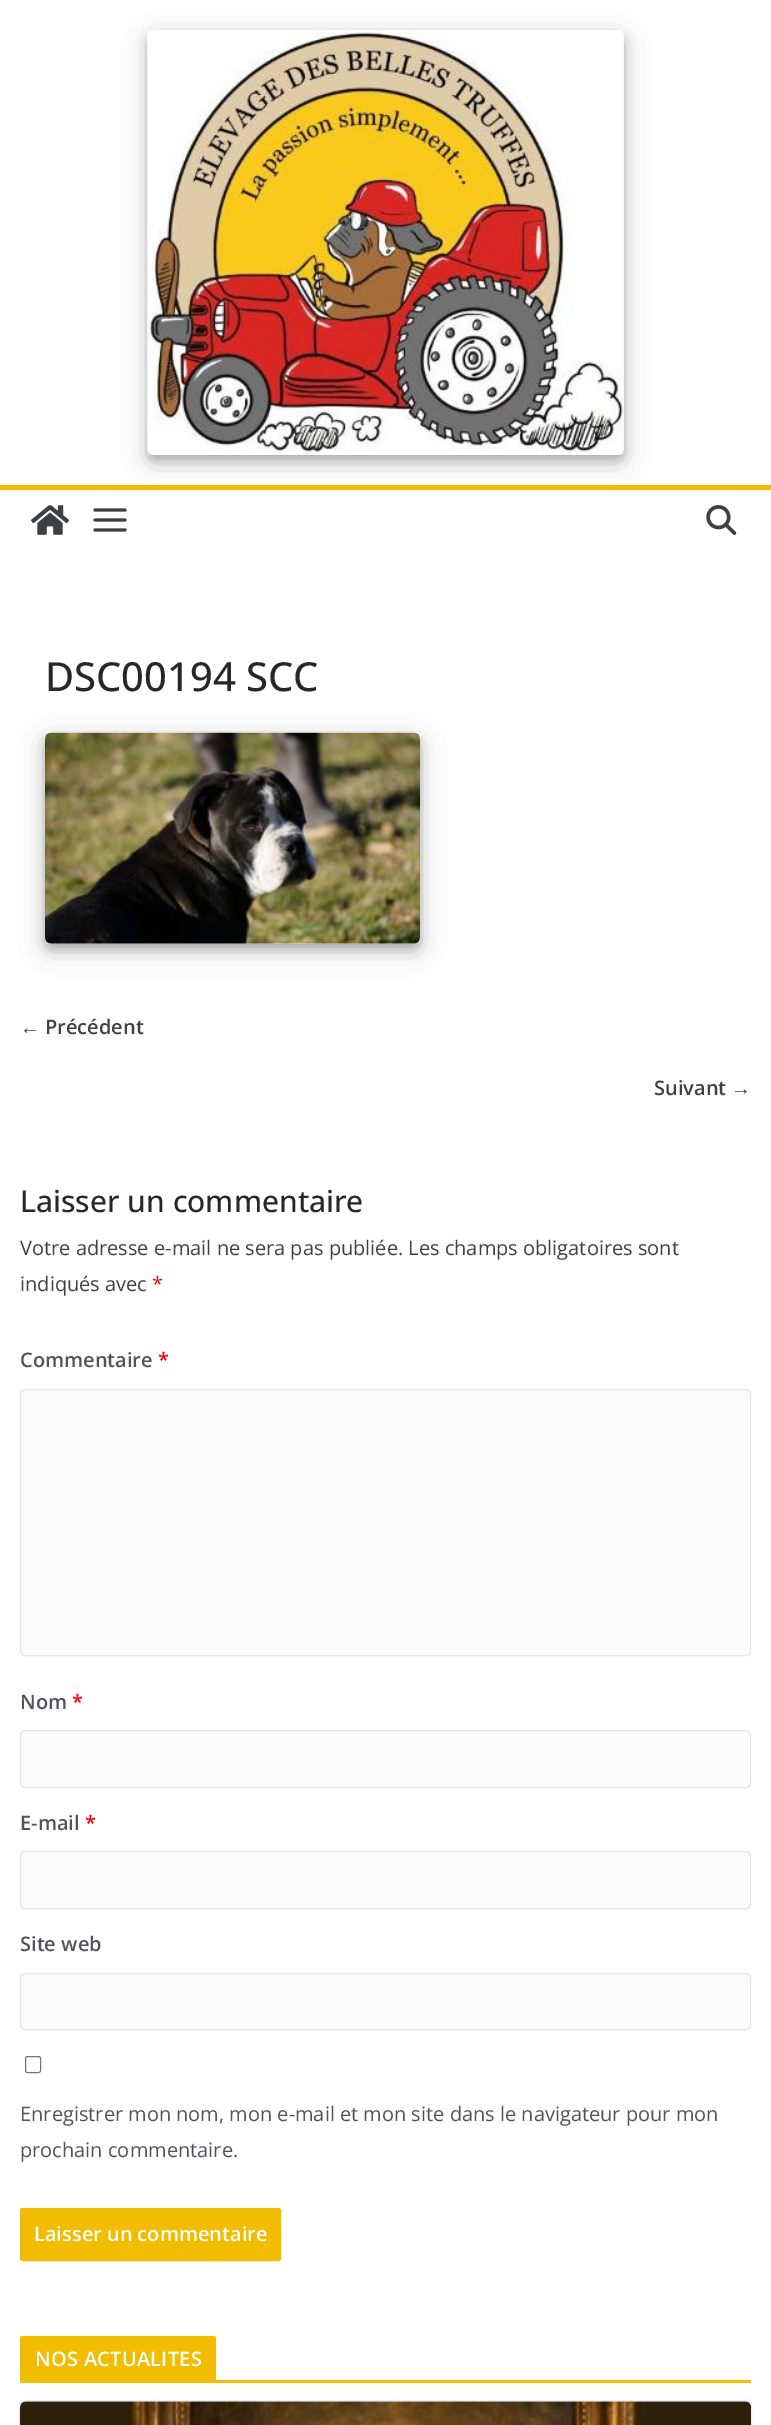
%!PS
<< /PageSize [771 2425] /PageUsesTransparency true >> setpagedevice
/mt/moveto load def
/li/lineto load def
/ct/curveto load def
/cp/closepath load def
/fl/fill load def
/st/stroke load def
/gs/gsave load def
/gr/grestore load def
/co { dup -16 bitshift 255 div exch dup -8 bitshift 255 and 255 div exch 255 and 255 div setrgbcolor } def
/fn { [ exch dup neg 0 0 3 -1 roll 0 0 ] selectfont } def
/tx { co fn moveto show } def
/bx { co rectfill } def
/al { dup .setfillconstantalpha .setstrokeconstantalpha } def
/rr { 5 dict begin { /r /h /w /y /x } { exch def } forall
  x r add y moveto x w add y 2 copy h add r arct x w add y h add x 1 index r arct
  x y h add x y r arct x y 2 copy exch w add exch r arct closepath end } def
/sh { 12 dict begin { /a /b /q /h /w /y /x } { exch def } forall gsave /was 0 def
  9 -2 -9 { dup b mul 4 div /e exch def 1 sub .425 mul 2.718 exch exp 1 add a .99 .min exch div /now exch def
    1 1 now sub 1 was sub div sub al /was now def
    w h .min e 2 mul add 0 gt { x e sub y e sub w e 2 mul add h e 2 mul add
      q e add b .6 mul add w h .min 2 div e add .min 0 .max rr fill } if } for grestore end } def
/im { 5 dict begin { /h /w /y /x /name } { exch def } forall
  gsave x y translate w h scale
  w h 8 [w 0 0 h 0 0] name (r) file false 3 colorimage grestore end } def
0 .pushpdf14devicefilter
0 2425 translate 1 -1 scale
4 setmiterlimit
0 0 771 2425 16#FFFFFF bx
16#000000 co
148 38 476 425 6 12.5 .19 sh
148 35 476 425 6 5 .2 sh
(media/1.raw) 147 30 477 425 im
0 485 771 5 16#F2BD00 bx
(media/2.raw) 31 505 38 30 im
(media/3.raw) 93 508 34 24 im
(media/4.raw) 706 505 31 30 im
16#000000 co
45 740 375 211 6 12.5 .19 sh
45 738 375 211 6 5 .2 sh
(media/5.raw) 45 732 375 212 im
16#FCFCFC co
20.5 1389.5 730 266 4.5 rr gs fl gr
16#E4E4E7 co
st
16#FCFCFC co
20.5 1730.5 730 57 4.5 rr gs fl gr
16#E4E4E7 co
st
16#FCFCFC co
20.5 1851.5 730 57 4.5 rr gs fl gr
16#E4E4E7 co
st
16#FCFCFC co
20.5 1973.5 730 56 4.5 rr gs fl gr
16#E4E4E7 co
st
16#767676 co
25.5 2056.5 15 16 2 rr st
16#F2BD00 co
20.5 2208.5 260 52 2 rr gs fl gr
st
20 2380 731 3 16#F2BD00 bx
22.5 2336 mt 213.5 2336 li 215 2336 216 2337 216 2338.5 ct 216 2380 li 20 2380 li 20 2338.5 li 20 2337 21 2336 22.5 2336 ct cp fl
16#000000 co
20 2401 731 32 5 1 .24 sh
gs
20 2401 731 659 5 rr clip newpath
20 2409 731 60 6 12.5 .19 sh
gr
(media/6.raw) 20 2401 731 24 im
(DSC00194 SCC) 45 691 /OpenSans-Medium 40 16#27272A tx
(←) 20 1034 /LiberationSerif-Bold 20 16#3F3F46 tx
(Précédent) 45 1034 /OpenSans-SemiBold 20 16#3F3F46 tx
(Suivant) 654 1095 /OpenSans-SemiBold 20 16#3F3F46 tx
(→) 731 1095 /LiberationSerif-Bold 20 16#3F3F46 tx
(Laisser un commentaire) 20 1212 /OpenSans-Medium 30 16#27272A tx
(Votre adresse e-mail ne sera pas publiée. Les champs obligatoires sont) 20 1255 /OpenSans-Regular 20 16#3F3F46 tx
(indiqués avec) 20 1291 /OpenSans-Regular 20 16#3F3F46 tx
(*) 152 1291 /OpenSans-Regular 20 16#FF0000 tx
(Commentaire) 20 1367 /OpenSans-SemiBold 20 16#52525B tx
(*) 158 1367 /OpenSans-SemiBold 20 16#FF0000 tx
(Nom) 20 1709 /OpenSans-SemiBold 20 16#52525B tx
(*) 72 1709 /OpenSans-SemiBold 20 16#FF0000 tx
(E-mail) 20 1830 /OpenSans-SemiBold 20 16#52525B tx
(*) 85 1830 /OpenSans-SemiBold 20 16#FF0000 tx
(Site web) 20 1951 /OpenSans-SemiBold 20 16#52525B tx
(Enregistrer mon nom, mon e-mail et mon site dans le navigateur pour mon) 20 2121 /OpenSans-Regular 20 16#52525B tx
(prochain commentaire.) 20 2157 /OpenSans-Regular 20 16#52525B tx
(Laisser un commentaire) 34 2241 /OpenSans-SemiBold 20 16#FFFFFF tx
35 2366 mt .25 0 (NOS ACTUALITES) ashow
.poppdf14devicefilter showpage
